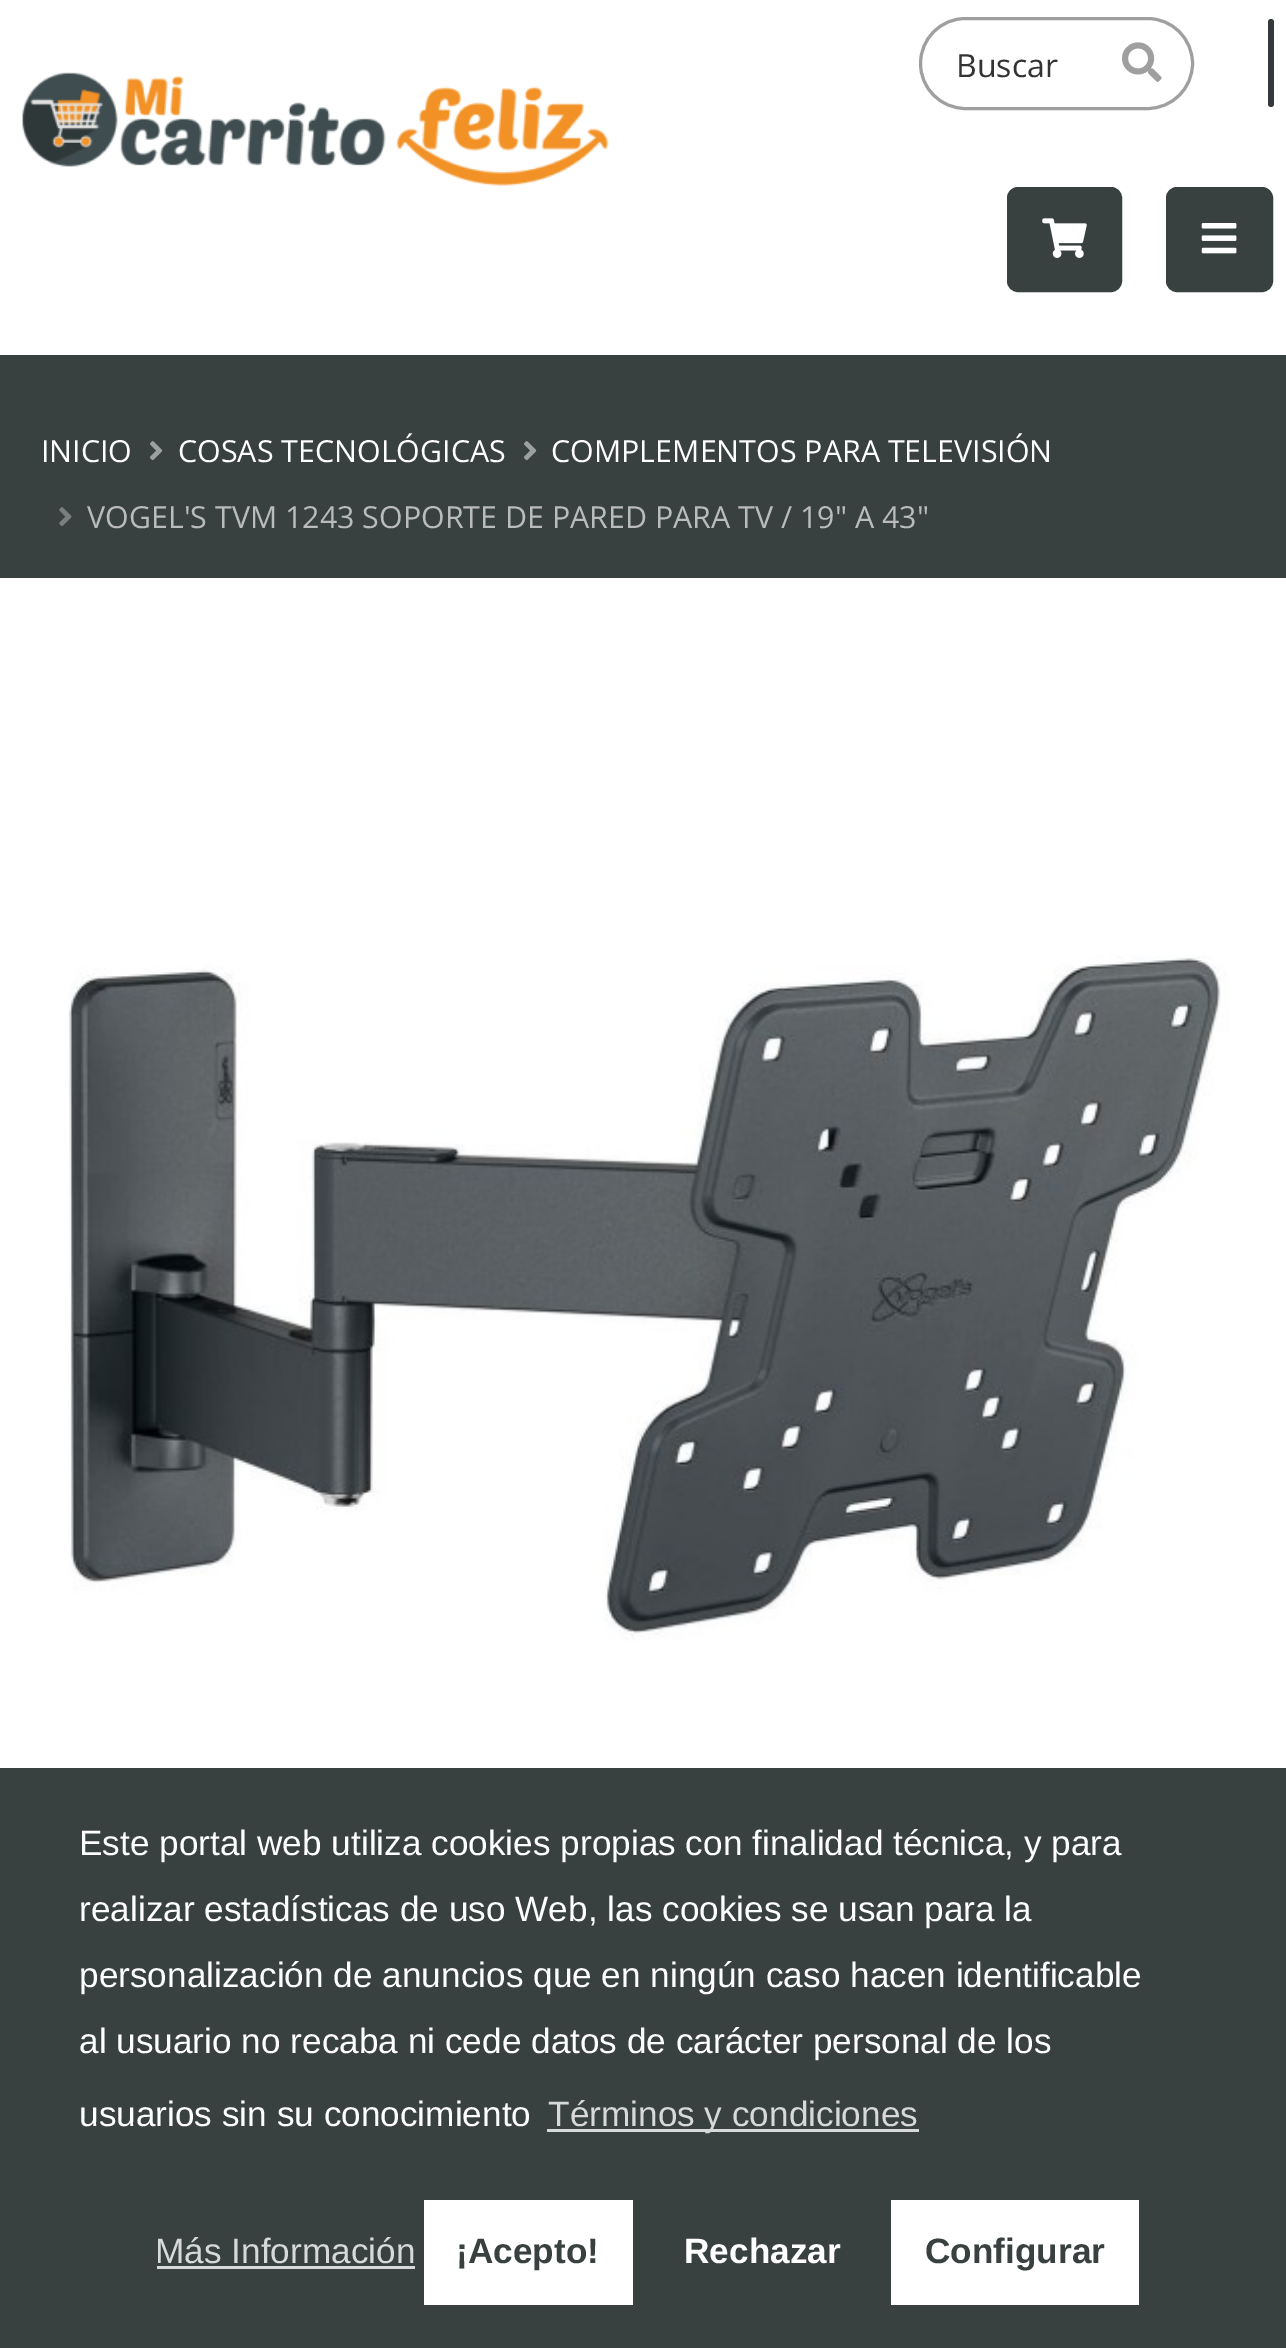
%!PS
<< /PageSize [1286 2348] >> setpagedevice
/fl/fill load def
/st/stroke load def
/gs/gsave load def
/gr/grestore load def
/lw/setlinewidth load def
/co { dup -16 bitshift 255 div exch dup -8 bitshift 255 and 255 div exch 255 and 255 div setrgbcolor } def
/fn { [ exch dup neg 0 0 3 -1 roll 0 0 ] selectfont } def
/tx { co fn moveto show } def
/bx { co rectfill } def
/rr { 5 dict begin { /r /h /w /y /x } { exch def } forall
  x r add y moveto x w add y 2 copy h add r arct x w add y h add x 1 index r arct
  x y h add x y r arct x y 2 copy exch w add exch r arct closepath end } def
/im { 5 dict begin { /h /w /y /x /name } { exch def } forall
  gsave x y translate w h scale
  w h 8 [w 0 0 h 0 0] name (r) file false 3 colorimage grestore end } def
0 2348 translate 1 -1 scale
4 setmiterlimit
0 0 1286 2348 16#FFFFFF bx
16#9F9F9F co
3 lw
920.5 18.5 272 90 45 rr st
(media/1.raw) 1122 42 40 40 im
16#343A3B co
1268 19 6 88 3 rr fl
16#394040 co
1008.5 188.5 112 102 9.5 rr gs fl gr
st
(media/2.raw) 1042 218 45 40 im
1167.5 188.5 104 102 9.5 rr gs fl gr
st
(media/3.raw) 1201 223 36 31 im
(media/4.raw) 21 72 588 114 im
0 355 1286 223 16#394040 bx
(media/5.raw) 150 441 13 20 im
(media/5.raw) 524 441 13 20 im
(media/6.raw) 59 507 13 19 im
(media/7.raw) 68 955 1161 686 im
0 1768 1286 580 16#394040 bx
547 2129 372 3 16#D7D9D9 bx
157 2266 258 3 16#D7D9D9 bx
424 2200 209 105 16#FFFFFF bx
891 2200 248 105 16#FFFFFF bx
(Buscar) 956 77 /OpenSans-Regular 32 16#333333 tx
(INICIO) 41 462 /OpenSans-Regular 30.4 16#FFFFFF tx
(COSAS TECNOLÓGICAS) 178 462 /OpenSans-Regular 30.4 16#FFFFFF tx
(COMPLEMENTOS PARA TELEVISIÓN) 551 462 /OpenSans-Regular 30.4 16#FFFFFF tx
(VOGEL'S TVM 1243 SOPORTE DE PARED PARA TV / 19" A 43") 87 528 /OpenSans-Regular 30.4 16#BABCBC tx
(Este portal web utiliza cookies propias con finalidad técnica, y para) 79 1855 /LiberationSans-Regular 35.2 16#FFFFFF tx
(realizar estadísticas de uso Web, las cookies se usan para la) 79 1921 /LiberationSans-Regular 35.2 16#FFFFFF tx
(personalización de anuncios que en ningún caso hacen identificable) 79 1987 /LiberationSans-Regular 35.2 16#FFFFFF tx
(al usuario no recaba ni cede datos de carácter personal de los) 79 2053 /LiberationSans-Regular 35.2 16#FFFFFF tx
(usuarios sin su conocimiento) 79 2126 /LiberationSans-Regular 35.2 16#FFFFFF tx
(Términos y condiciones) 548 2126 /LiberationSans-Regular 35.2 16#D7D9D9 tx
(Más Información) 155 2263 /LiberationSans-Regular 35.2 16#D7D9D9 tx
(¡Acepto!) 456 2263 /LiberationSans-Bold 35.2 16#394040 tx
(Rechazar) 684 2263 /LiberationSans-Bold 35.2 16#FFFFFF tx
(Configurar) 925 2263 /LiberationSans-Bold 35.2 16#394040 tx
showpage
